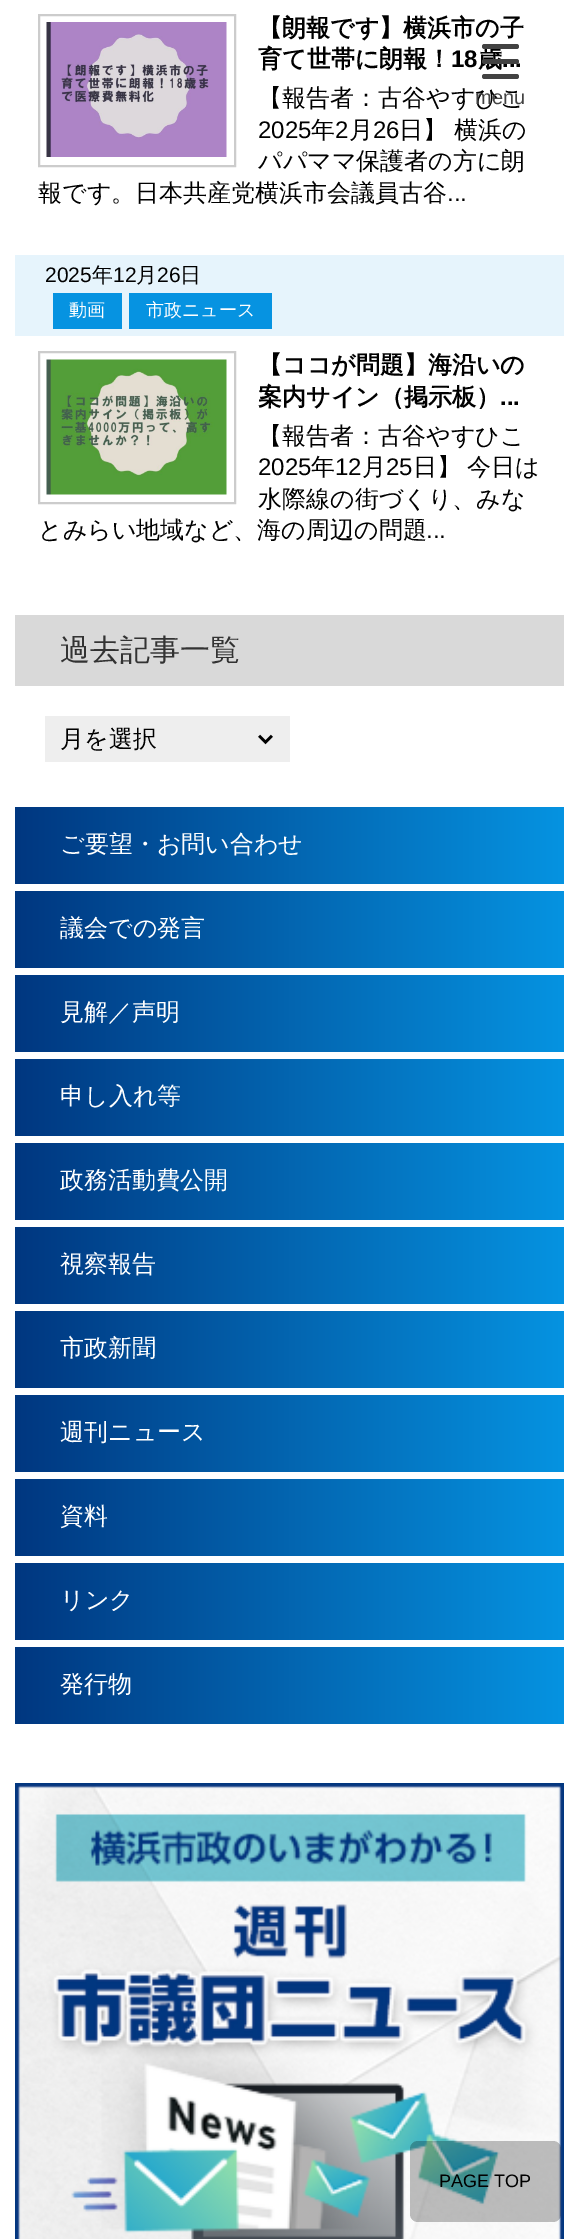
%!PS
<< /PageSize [579 2239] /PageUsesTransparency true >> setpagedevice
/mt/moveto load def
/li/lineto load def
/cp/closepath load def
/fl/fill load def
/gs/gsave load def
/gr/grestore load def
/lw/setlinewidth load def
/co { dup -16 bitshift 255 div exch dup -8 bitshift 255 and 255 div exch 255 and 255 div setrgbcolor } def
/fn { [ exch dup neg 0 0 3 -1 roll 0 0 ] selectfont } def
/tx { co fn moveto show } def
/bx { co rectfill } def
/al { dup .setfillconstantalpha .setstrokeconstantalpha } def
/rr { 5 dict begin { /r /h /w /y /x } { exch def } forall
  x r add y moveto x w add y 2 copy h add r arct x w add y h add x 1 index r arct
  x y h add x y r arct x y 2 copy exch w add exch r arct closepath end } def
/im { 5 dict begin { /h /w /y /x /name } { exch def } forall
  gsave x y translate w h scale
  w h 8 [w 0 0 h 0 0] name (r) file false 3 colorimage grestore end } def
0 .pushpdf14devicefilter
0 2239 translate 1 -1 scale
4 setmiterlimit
0 0 579 2239 16#FFFFFF bx
16#CCCCCC co
2 lw
39 15 196 151 rectstroke
(media/1.raw) 46 22 181 135 im
15 255 549 81 16#E6F4FC bx
53 293 69 36 16#0693E1 bx
129 293 143 36 16#0693E1 bx
16#CCCCCC co
39 352 196 151 rectstroke
(media/2.raw) 46 359 181 136 im
15 615 549 71 16#D9D9D9 bx
45 716 245 46 16#EEEEEE bx
(media/3.raw) 258 734 15 11 im
gs 15 807 mt 564 807 li 564 884 li 15 884 li cp clip newpath
<< /ShadingType 2 /ColorSpace /DeviceRGB /Coords [15 845 564 845] /Extend [true true] /Function << /FunctionType 2 /Domain [0 1] /C0 [0 .216 .502] /C1 [.024 .576 .882] /N 1 >> >> shfill gr
gs 15 891 mt 564 891 li 564 968 li 15 968 li cp clip newpath
<< /ShadingType 2 /ColorSpace /DeviceRGB /Coords [15 929 564 929] /Extend [true true] /Function << /FunctionType 2 /Domain [0 1] /C0 [0 .216 .502] /C1 [.024 .576 .882] /N 1 >> >> shfill gr
gs 15 975 mt 564 975 li 564 1052 li 15 1052 li cp clip newpath
<< /ShadingType 2 /ColorSpace /DeviceRGB /Coords [15 1013 564 1013] /Extend [true true] /Function << /FunctionType 2 /Domain [0 1] /C0 [0 .216 .502] /C1 [.024 .576 .882] /N 1 >> >> shfill gr
gs 15 1059 mt 564 1059 li 564 1136 li 15 1136 li cp clip newpath
<< /ShadingType 2 /ColorSpace /DeviceRGB /Coords [15 1097 564 1097] /Extend [true true] /Function << /FunctionType 2 /Domain [0 1] /C0 [0 .216 .502] /C1 [.024 .576 .882] /N 1 >> >> shfill gr
gs 15 1143 mt 564 1143 li 564 1220 li 15 1220 li cp clip newpath
<< /ShadingType 2 /ColorSpace /DeviceRGB /Coords [15 1181 564 1181] /Extend [true true] /Function << /FunctionType 2 /Domain [0 1] /C0 [0 .216 .502] /C1 [.024 .576 .882] /N 1 >> >> shfill gr
gs 15 1227 mt 564 1227 li 564 1304 li 15 1304 li cp clip newpath
<< /ShadingType 2 /ColorSpace /DeviceRGB /Coords [15 1265 564 1265] /Extend [true true] /Function << /FunctionType 2 /Domain [0 1] /C0 [0 .216 .502] /C1 [.024 .576 .882] /N 1 >> >> shfill gr
gs 15 1311 mt 564 1311 li 564 1388 li 15 1388 li cp clip newpath
<< /ShadingType 2 /ColorSpace /DeviceRGB /Coords [15 1349 564 1349] /Extend [true true] /Function << /FunctionType 2 /Domain [0 1] /C0 [0 .216 .502] /C1 [.024 .576 .882] /N 1 >> >> shfill gr
gs 15 1395 mt 564 1395 li 564 1472 li 15 1472 li cp clip newpath
<< /ShadingType 2 /ColorSpace /DeviceRGB /Coords [15 1433 564 1433] /Extend [true true] /Function << /FunctionType 2 /Domain [0 1] /C0 [0 .216 .502] /C1 [.024 .576 .882] /N 1 >> >> shfill gr
gs 15 1479 mt 564 1479 li 564 1556 li 15 1556 li cp clip newpath
<< /ShadingType 2 /ColorSpace /DeviceRGB /Coords [15 1517 564 1517] /Extend [true true] /Function << /FunctionType 2 /Domain [0 1] /C0 [0 .216 .502] /C1 [.024 .576 .882] /N 1 >> >> shfill gr
gs 15 1563 mt 564 1563 li 564 1640 li 15 1640 li cp clip newpath
<< /ShadingType 2 /ColorSpace /DeviceRGB /Coords [15 1601 564 1601] /Extend [true true] /Function << /FunctionType 2 /Domain [0 1] /C0 [0 .216 .502] /C1 [.024 .576 .882] /N 1 >> >> shfill gr
gs 15 1647 mt 564 1647 li 564 1724 li 15 1724 li cp clip newpath
<< /ShadingType 2 /ColorSpace /DeviceRGB /Coords [15 1685 564 1685] /Extend [true true] /Function << /FunctionType 2 /Domain [0 1] /C0 [0 .216 .502] /C1 [.024 .576 .882] /N 1 >> >> shfill gr
(media/4.raw) 15 1783 549 456 im
16#424242 co
482 74 37 5 2.5 rr fl
0.25 al
16#000000 co
410 2141 151 81 8 rr fl
1 al
(【朗報です】横浜市の子) 258 36 /WenQuanYiZenHei-Bold 24 16#000000 tx
(育て世帯に朗報！) 258 67 /WenQuanYiZenHei-Bold 24 16#000000 tx
(18) 451 67 /LiberationSans-Bold 24 16#000000 tx
(歳) 478 67 /WenQuanYiZenHei-Bold 24 16#000000 tx
(...) 502 67 /LiberationSans-Bold 24 16#000000 tx
(【報告者：古谷やすひこ) 258 106 /WenQuanYiZenHei-Medium 24 16#000000 tx
(2025) 258 138 /LiberationSans-Regular 24 16#000000 tx
(年) 311 138 /WenQuanYiZenHei-Medium 24 16#000000 tx
(2) 335 138 /LiberationSans-Regular 24 16#000000 tx
(月) 349 138 /WenQuanYiZenHei-Medium 24 16#000000 tx
(26) 373 138 /LiberationSans-Regular 24 16#000000 tx
(日】) 399 138 /WenQuanYiZenHei-Medium 24 16#000000 tx
(横浜の) 454 138 /WenQuanYiZenHei-Medium 24 16#000000 tx
(パパママ保護者の方に朗) 258 169 /WenQuanYiZenHei-Medium 24 16#000000 tx
(報です。日本共産党横浜市会議員古谷) 38 201 /WenQuanYiZenHei-Medium 24 16#000000 tx
(...) 447 201 /LiberationSans-Regular 24 16#000000 tx
(2025) 45 282 /LiberationSans-Regular 21 16#000000 tx
(年) 92 282 /WenQuanYiZenHei-Medium 21 16#000000 tx
(12) 113 282 /LiberationSans-Regular 21 16#000000 tx
(月) 136 282 /WenQuanYiZenHei-Medium 21 16#000000 tx
(26) 157 282 /LiberationSans-Regular 21 16#000000 tx
(日) 180 282 /WenQuanYiZenHei-Medium 21 16#000000 tx
(動画) 69 316 /WenQuanYiZenHei-Medium 18 16#FFFFFF tx
(市政ニュース) 146 316 /WenQuanYiZenHei-Medium 18 16#FFFFFF tx
(【ココが問題】海沿いの) 258 373 /WenQuanYiZenHei-Bold 24 16#000000 tx
(案内サイン（掲示板）) 258 405 /WenQuanYiZenHei-Bold 24 16#000000 tx
(...) 500 405 /LiberationSans-Bold 24 16#000000 tx
(【報告者：古谷やすひこ) 258 444 /WenQuanYiZenHei-Medium 24 16#000000 tx
(2025) 258 475 /LiberationSans-Regular 24 16#000000 tx
(年) 311 475 /WenQuanYiZenHei-Medium 24 16#000000 tx
(12) 335 475 /LiberationSans-Regular 24 16#000000 tx
(月) 362 475 /WenQuanYiZenHei-Medium 24 16#000000 tx
(25) 386 475 /LiberationSans-Regular 24 16#000000 tx
(日】) 413 475 /WenQuanYiZenHei-Medium 24 16#000000 tx
(今日は) 467 475 /WenQuanYiZenHei-Medium 24 16#000000 tx
(水際線の街づくり、みな) 258 507 /WenQuanYiZenHei-Medium 24 16#000000 tx
(とみらい地域など、海の周辺の問題) 38 538 /WenQuanYiZenHei-Medium 24 16#000000 tx
(...) 426 538 /LiberationSans-Regular 24 16#000000 tx
(過去記事一覧) 60 660 /WenQuanYiZenHei-Medium 30 16#333333 tx
(月を選択) 60 747 /WenQuanYiZenHei-Medium 24 16#000000 tx
(ご要望・お問い合わせ) 60 852 /WenQuanYiZenHei-Medium 24 16#FFFFFF tx
(議会での発言) 60 936 /WenQuanYiZenHei-Medium 24 16#FFFFFF tx
(見解／声明) 60 1020 /WenQuanYiZenHei-Medium 24 16#FFFFFF tx
(申し入れ等) 60 1104 /WenQuanYiZenHei-Medium 24 16#FFFFFF tx
(政務活動費公開) 60 1188 /WenQuanYiZenHei-Medium 24 16#FFFFFF tx
(視察報告) 60 1272 /WenQuanYiZenHei-Medium 24 16#FFFFFF tx
(市政新聞) 60 1356 /WenQuanYiZenHei-Medium 24 16#FFFFFF tx
(週刊ニュース) 60 1440 /WenQuanYiZenHei-Medium 24 16#FFFFFF tx
(資料) 60 1524 /WenQuanYiZenHei-Medium 24 16#FFFFFF tx
(リンク) 60 1608 /WenQuanYiZenHei-Medium 24 16#FFFFFF tx
(発行物) 60 1692 /WenQuanYiZenHei-Medium 24 16#FFFFFF tx
16#424242 co
482 59 37 5 2.5 rr fl
482 44 37 5 2.5 rr fl
(menu) 475 104 /LiberationSans-Regular 20 16#424242 tx
(PAGE TOP) 439 2187 /LiberationSans-Regular 18 16#000000 tx
.poppdf14devicefilter showpage
